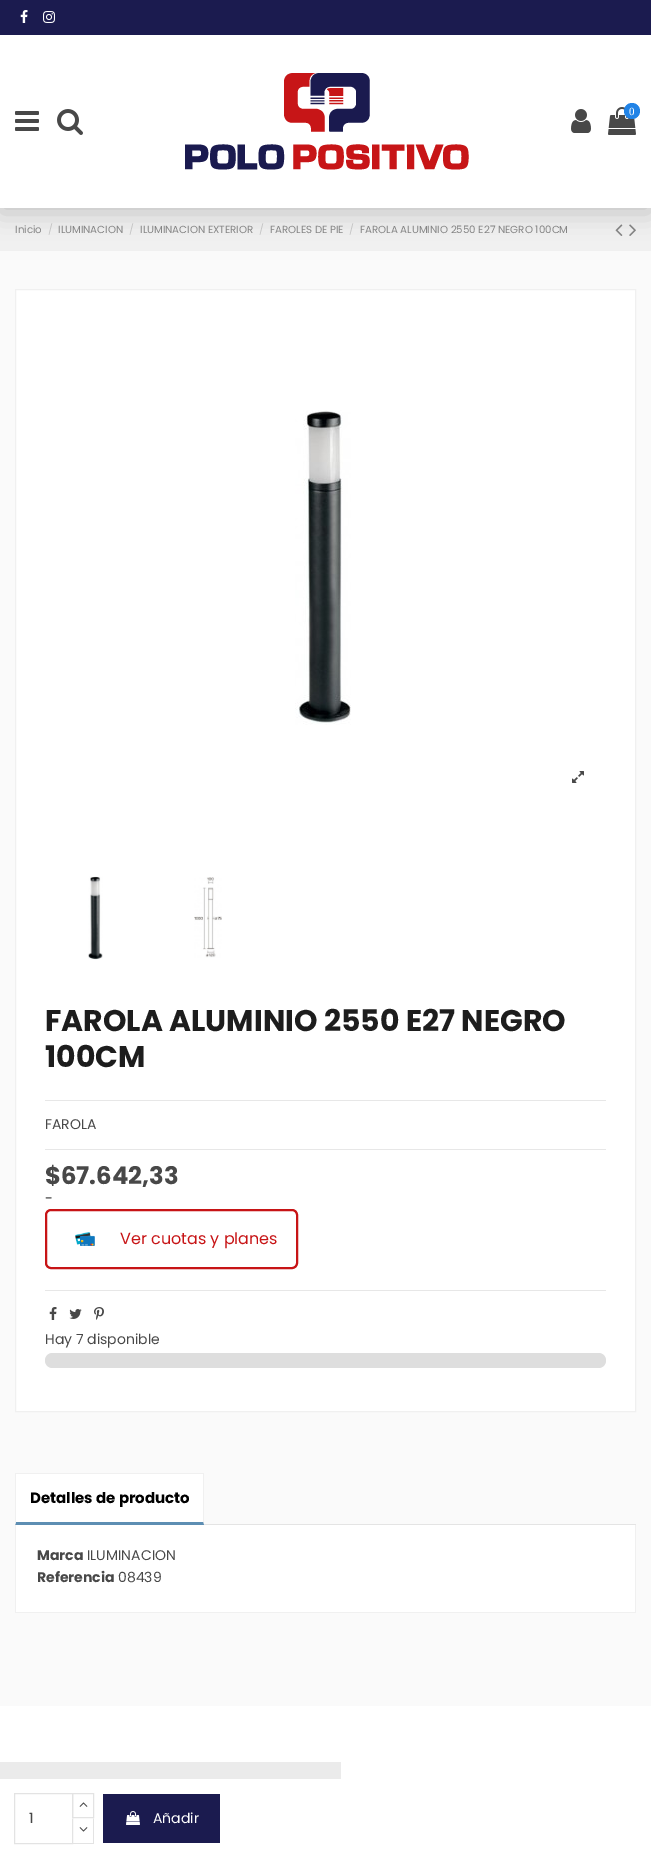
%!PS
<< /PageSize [651 1866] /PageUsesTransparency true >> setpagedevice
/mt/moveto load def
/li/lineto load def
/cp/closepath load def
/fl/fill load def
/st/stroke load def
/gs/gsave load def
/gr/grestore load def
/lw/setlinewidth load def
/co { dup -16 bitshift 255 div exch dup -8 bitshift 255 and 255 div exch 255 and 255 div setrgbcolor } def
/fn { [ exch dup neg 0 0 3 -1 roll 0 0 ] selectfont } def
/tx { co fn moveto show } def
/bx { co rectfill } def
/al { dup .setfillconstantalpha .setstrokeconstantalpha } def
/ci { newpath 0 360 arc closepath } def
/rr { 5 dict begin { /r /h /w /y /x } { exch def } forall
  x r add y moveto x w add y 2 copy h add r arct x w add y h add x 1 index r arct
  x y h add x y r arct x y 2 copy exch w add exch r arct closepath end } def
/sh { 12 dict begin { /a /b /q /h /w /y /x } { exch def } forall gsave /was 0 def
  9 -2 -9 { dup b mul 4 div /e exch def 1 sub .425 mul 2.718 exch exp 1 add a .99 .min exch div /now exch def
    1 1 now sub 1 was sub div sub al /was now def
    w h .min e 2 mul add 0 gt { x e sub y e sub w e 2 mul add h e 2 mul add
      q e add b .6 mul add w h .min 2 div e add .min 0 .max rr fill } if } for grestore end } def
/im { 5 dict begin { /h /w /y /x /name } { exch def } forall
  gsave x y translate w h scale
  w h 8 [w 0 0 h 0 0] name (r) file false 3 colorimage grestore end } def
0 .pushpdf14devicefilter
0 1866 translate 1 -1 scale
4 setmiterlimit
0 0 651 1866 16#FAFAFA bx
0 208 651 43 16#F0F0F0 bx
(media/8.raw) 615 224 8 12 im
(media/9.raw) 629 224 7 12 im
16#000000 co
0 5 651 208 0 12.5 .18 sh
0 35 651 173 16#FFFFFF bx
0 0 651 35 16#1B1B4F bx
(media/1.raw) 20 10 8 13 im
(media/2.raw) 43 11 12 12 im
(media/3.raw) 15 111 24 20 im
(media/4.raw) 57 109 26 26 im
(media/5.raw) 185 73 284 97 im
(media/6.raw) 571 109 20 24 im
(media/7.raw) 608 107 28 28 im
16#2183E6 co
632 111 8 ci fl
16#FFFFFF co
15.5 289.5 mt 635.5 289.5 li 635.5 1411.5 li 15.5 1411.5 li cp gs fl gr
16#F0F0F0 co
st
(media/10.raw) 295 410 56 315 im
(media/11.raw) 572 771 12 12 im
(media/12.raw) 88 876 15 84 im
(media/13.raw) 194 877 28 81 im
45 1100 561 1 16#E7E7E7 bx
45 1149 561 1 16#E7E7E7 bx
16#C71416 co
2 lw
46 1210 251 58 5 rr st
(media/14.raw) 75 1232 20 14 im
0 1706 651 160 16#FFFFFF bx
16#E3E3E3 co
1 lw
14.5 1793.5 58 50 rectstroke
72.5 1793.5 21 24 rectstroke
(media/15.raw) 79 1802 9 5 im
72 1818 1 25 16#FFFFFF bx
16#E3E3E3 co
94 1818 mt 94 1844 li 93 1843 li 93 1819 li cp fl
72 1843 22 1 16#E3E3E3 bx
72 1844 mt 72 1818 li 73 1819 li 73 1843 li cp fl
(media/16.raw) 79 1827 9 5 im
103 1794 117 49 16#1B1B4F bx
(media/17.raw) 126 1811 14 14 im
45 1290 561 1 16#E7E7E7 bx
(media/18.raw) 49 1307 8 13 im
(media/19.raw) 69 1309 13 10 im
(media/20.raw) 94 1307 10 13 im
16#DEDEDE co
45 1353 561 15 7.5 rr fl
15 1524 621 1 16#E4E4E4 bx
16 1474 187 48 16#FFFFFF bx
15 1473 189 1 16#F0F0F0 bx
204 1473 mt 204 1525 li 203 1522 li 203 1474 li cp fl
16#5D8EB3 co
204 1525 mt 15 1525 li 16 1522 li 203 1522 li cp fl
16#F0F0F0 co
15 1525 mt 15 1473 li 16 1474 li 16 1522 li cp fl
16 1525 619 87 16#FFFFFF bx
635 1525 1 88 16#F0F0F0 bx
15 1612 621 1 16#F0F0F0 bx
15 1525 1 88 16#F0F0F0 bx
0 1762 341 17 16#EBEBEB bx
(0) 629 115 /LiberationSerif-Regular 11 16#FFFFFF tx
(Inicio) 15 233 /Poppins-Regular 10.25 16#858585 tx
(/) 48 233 /Poppins-Regular 10.25 16#C5C5C5 tx
(ILUMINACION) 58 233 /Poppins-Regular 10.25 16#858585 tx
(/) 129 233 /Poppins-Regular 10.25 16#C5C5C5 tx
(ILUMINACION EXTERIOR) 140 233 /Poppins-Regular 10.25 16#858585 tx
(/) 259 233 /Poppins-Regular 10.25 16#C5C5C5 tx
(FAROLES DE PIE) 270 233 /Poppins-Regular 10.25 16#858585 tx
(/) 349 233 /Poppins-Regular 10.25 16#C5C5C5 tx
(FAROLA ALUMINIO 2550 E27 NEGRO 100CM) 360 233 /Poppins-Regular 10.25 16#858585 tx
(FAROLA ALUMINIO 2550 E27 NEGRO) 45 1031 /Poppins-Bold 29.9 16#1D1D1D tx
(100CM) 45 1067 /Poppins-Bold 29.9 16#1D1D1D tx
(FAROLA) 45 1129 /Poppins-Regular 14 16#484848 tx
($67.642,33) 45 1184 /Poppins-Bold 24.25 16#484848 tx
(-) 45 1203 /Poppins-Regular 14 16#484848 tx
(Ver cuotas y planes) 120 1244 /Poppins-Regular 16 16#C71416 tx
(1) 29 1823 /Poppins-Regular 14 16#484848 tx
(Añadir) 153 1823 /Poppins-Regular 14 16#FFFFFF tx
(Hay 7 disponible) 45 1344 /Poppins-Regular 14 16#484848 tx
(Detalles de producto) 30 1503 /Poppins-Bold 15 16#000000 tx
(Marca) 37 1560 /Poppins-Bold 14 16#484848 tx
(ILUMINACION) 87 1560 /Poppins-Regular 14 16#484848 tx
(Referencia) 37 1582 /Poppins-Bold 14 16#484848 tx
(08439) 118 1582 /Poppins-Regular 14 16#484848 tx
.poppdf14devicefilter showpage
